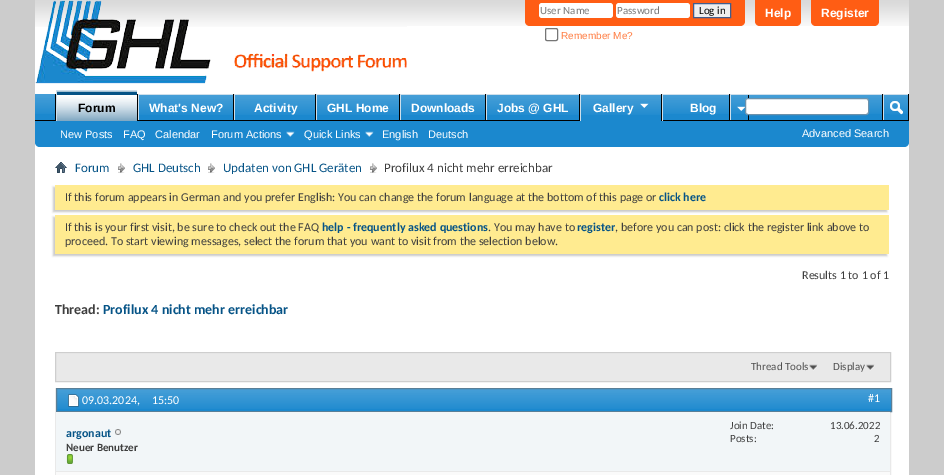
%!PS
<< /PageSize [944 475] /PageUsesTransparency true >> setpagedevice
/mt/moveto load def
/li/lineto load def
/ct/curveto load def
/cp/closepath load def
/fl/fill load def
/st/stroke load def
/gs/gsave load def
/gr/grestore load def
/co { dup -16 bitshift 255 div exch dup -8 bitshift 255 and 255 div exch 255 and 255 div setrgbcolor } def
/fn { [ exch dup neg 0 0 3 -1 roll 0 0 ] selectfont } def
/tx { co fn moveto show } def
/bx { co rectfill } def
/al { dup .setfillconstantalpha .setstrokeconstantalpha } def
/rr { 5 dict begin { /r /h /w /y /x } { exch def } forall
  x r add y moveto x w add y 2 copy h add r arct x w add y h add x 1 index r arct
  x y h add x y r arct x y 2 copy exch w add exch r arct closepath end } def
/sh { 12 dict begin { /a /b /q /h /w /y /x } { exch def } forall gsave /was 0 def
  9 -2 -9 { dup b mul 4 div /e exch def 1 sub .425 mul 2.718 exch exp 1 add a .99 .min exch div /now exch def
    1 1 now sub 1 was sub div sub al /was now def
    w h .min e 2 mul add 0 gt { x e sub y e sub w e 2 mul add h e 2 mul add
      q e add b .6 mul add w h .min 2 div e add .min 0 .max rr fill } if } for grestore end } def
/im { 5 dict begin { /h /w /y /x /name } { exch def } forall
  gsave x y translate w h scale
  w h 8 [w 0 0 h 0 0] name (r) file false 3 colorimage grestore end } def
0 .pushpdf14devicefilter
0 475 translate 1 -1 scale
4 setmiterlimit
0 0 944 475 16#CCCCCC bx
35 0 874 475 16#FFFFFF bx
(media/1.raw) 35 0 874 26 im
(media/2.raw) 35 0 372 84 im
16#FF5D14 co
525 0 mt 745 0 li 745 21 li 745 24 743 26 740 26 ct 530 26 li 527 26 525 24 525 21 ct cp fl
16#FFFFFF co
539 3 74 15 3 rr fl
616 3 74 15 3 rr fl
16#EFEFEF co
693.5 3.5 mt 730.5 3.5 li 730.5 17.5 li 693.5 17.5 li cp gs fl gr
16#415D8D co
st
16#767676 co
545.5 28.5 12 12 1.5 rr st
16#FF5D14 co
755 0 mt 801 0 li 801 21 li 801 24 799 26 796 26 ct 760 26 li 757 26 755 24 755 21 ct cp fl
811 0 mt 879 0 li 879 21 li 879 24 877 26 874 26 ct 816 26 li 813 26 811 24 811 21 ct cp fl
16#1B88CE co
35 94 mt 909 94 li 909 142 li 909 145 907 147 904 147 ct 40 147 li 37 147 35 145 35 142 ct cp fl
(media/3.raw) 35 94 873 20 im
137 94 1 26 16#000000 bx
55 94 1 26 16#000000 bx
233 94 1 27 16#000000 bx
138 94 95 1 16#CEDFEB bx
138 94 1 27 16#CEDFEB bx
315 94 1 27 16#000000 bx
234 94 81 1 16#CEDFEB bx
234 94 1 27 16#CEDFEB bx
399 94 1 27 16#000000 bx
316 94 83 1 16#CEDFEB bx
316 94 1 27 16#CEDFEB bx
485 94 1 27 16#000000 bx
400 94 85 1 16#CEDFEB bx
400 94 1 27 16#CEDFEB bx
579 94 1 27 16#000000 bx
486 94 93 1 16#CEDFEB bx
486 94 1 27 16#CEDFEB bx
35 120 874 1 16#000000 bx
57 91 80 30 16#055386 bx
(media/4.raw) 57 91 80 30 im
56 90 81 1 16#CEDFEB bx
56 90 1 31 16#CEDFEB bx
139 95 94 19 16#1B88CE bx
(media/5.raw) 139 95 94 20 im
235 95 80 19 16#1B88CE bx
(media/6.raw) 235 95 80 20 im
317 95 82 19 16#1B88CE bx
(media/7.raw) 317 95 82 20 im
401 95 84 19 16#1B88CE bx
(media/8.raw) 401 95 84 20 im
487 95 92 19 16#1B88CE bx
(media/9.raw) 487 95 92 20 im
661 94 1 27 16#000000 bx
581 95 80 26 16#1B88CE bx
(media/6.raw) 581 95 80 20 im
580 94 81 1 16#CEDFEB bx
580 94 1 27 16#CEDFEB bx
(media/10.raw) 640 103 9 5 im
748 94 1 27 16#000000 bx
(media/11.raw) 737 106 8 5 im
662 94 67 1 16#CEDFEB bx
662 94 1 27 16#CEDFEB bx
(media/12.raw) 286 131 9 6 im
(media/12.raw) 365 131 9 6 im
729 94 1 26 16#000000 bx
730 94 152 1 16#CEDFEB bx
730 94 1 26 16#CEDFEB bx
16#FFFFFF co
745.5 98.5 123 16 2.5 rr gs fl gr
16#6B91AB co
st
908 94 1 26 16#000000 bx
882 94 1 26 16#000000 bx
883 94 25 1 16#CEDFEB bx
883 94 1 26 16#CEDFEB bx
(media/13.raw) 890 101 13 14 im
(media/14.raw) 55 162 12 11 im
(media/15.raw) 118 163 7 10 im
(media/15.raw) 208 163 7 10 im
(media/15.raw) 370 163 7 10 im
16#C8C8C8 co
53 187 834 25 0 1 1 sh
55 185 834 25 16#FFEB90 bx
16#C8C8C8 co
53 217 834 39 0 1 1 sh
55 215 834 39 16#FFEB90 bx
56 354 834 27 16#E9E9E9 bx
55 353 836 1 16#EDEDED bx
16#CECECE co
55.5 352.5 835 29 rectstroke
(media/16.raw) 809 364 9 7 im
(media/16.raw) 866 364 9 7 im
16#E9E9E9 co
55.5 388.5 835 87 rectstroke
57 389 834 22 16#1B88CE bx
(media/17.raw) 57 389 834 20 im
16#5A7F97 co
56.5 388.5 835 23 rectstroke
(media/18.raw) 68 394 11 13 im
56 412 834 59 16#F2F6F8 bx
56 471 834 1 16#E9E9E9 bx
(media/19.raw) 115 429 6 6 im
(media/20.raw) 66 454 7 10 im
56 472 834 3 16#FAFAFA bx
(User Name) 540 14 /Carlito-Regular 11 16#777777 tx
(Password) 617 14 /Carlito-Regular 11 16#777777 tx
(Log in) 699 14 /Carlito-Regular 11 16#000000 tx
(Remember Me?) 561 39 /LiberationSans-Regular 10 16#FF7C41 tx
(Help) 765 17 /LiberationSans-Bold 12 16#FFFFFF tx
(Register) 821 17 /LiberationSans-Bold 12 16#FFFFFF tx
(Forum) 78 112 /LiberationSans-Bold 12 16#000000 tx
(What's New?) 149 112 /LiberationSans-Bold 12 16#FFFFFF tx
(Activity) 254 112 /LiberationSans-Bold 12 16#FFFFFF tx
(GHL Home) 327 112 /LiberationSans-Bold 12 16#FFFFFF tx
(Downloads) 411 112 /LiberationSans-Bold 12 16#FFFFFF tx
(Jobs @ GHL) 497 112 /LiberationSans-Bold 12 16#FFFFFF tx
(Gallery) 593 112 /LiberationSans-Bold 12 16#FFFFFF tx
(Blog) 690 112 /LiberationSans-Bold 12 16#FFFFFF tx
(New Posts) 60 138 /LiberationSans-Regular 11 16#FFFFFF tx
(FAQ) 123 138 /LiberationSans-Regular 11 16#FFFFFF tx
(Calendar) 155 138 /LiberationSans-Regular 11 16#FFFFFF tx
(Forum Actions) 211 138 /LiberationSans-Regular 11 16#FFFFFF tx
(Quick Links) 304 138 /LiberationSans-Regular 11 16#FFFFFF tx
(English) 382 138 /LiberationSans-Regular 11 16#FFFFFF tx
(Deutsch) 428 138 /LiberationSans-Regular 11 16#FFFFFF tx
(Advanced Search) 802 137 /LiberationSans-Regular 11 16#FFFFFF tx
(Forum) 75 172 /Carlito-Regular 13 16#055386 tx
(GHL Deutsch) 133 172 /Carlito-Regular 13 16#055386 tx
(Updaten von GHL Geräten) 223 172 /Carlito-Regular 13 16#055386 tx
(Profilux 4 nicht mehr erreichbar) 384 172 /Carlito-Regular 13 16#3E3E3E tx
(If this forum appears in German and you prefer English: You can change the forum language at the bottom of this page or) 65 201 /Carlito-Regular 12 16#3E3E3E tx
(click here) 659 201 /Carlito-Bold 12 16#055386 tx
(If this is your first visit, be sure to check out the FAQ) 65 231 /Carlito-Regular 12 16#3E3E3E tx
(help - frequently asked questions) 322 231 /Carlito-Bold 12 16#055386 tx
(. You may have to) 488 231 /Carlito-Regular 12 16#3E3E3E tx
(register) 577 231 /Carlito-Bold 12 16#055386 tx
(, before you can post: click the register link above to) 615 231 /Carlito-Regular 12 16#3E3E3E tx
(proceed. To start viewing messages, select the forum that you want to visit from the selection below.) 65 245 /Carlito-Regular 12 16#3E3E3E tx
(Results 1 to 1 of 1) 802 279 /Carlito-Regular 12 16#3E3E3E tx
(Thread:) 55 314 /Carlito-Bold 14 16#3E3E3E tx
(Profilux 4 nicht mehr erreichbar) 103 314 /Carlito-Bold 14 16#055386 tx
(Thread Tools) 751 370 /Carlito-Regular 11 16#4E4E4E tx
(Display) 833 370 /Carlito-Regular 11 16#4E4E4E tx
(09.03.2024,) 82 404 /Carlito-Regular 12 16#FFFFFF tx
(15:50) 152 404 /Carlito-Regular 12 16#FFFFFF tx
(#1) 868 402 /Carlito-Regular 12 16#FFFFFF tx
(argonaut) 66 437 /Carlito-Bold 12 16#055386 tx
(Neuer Benutzer) 66 451 /Carlito-Bold 11 16#3E3E3E tx
(Join Date:) 730 429 /Carlito-Regular 11 16#3E3E3E tx
(13.06.2022) 830 429 /Carlito-Regular 11 16#3E3E3E tx
(Posts:) 730 442 /Carlito-Regular 11 16#3E3E3E tx
(2) 874 442 /Carlito-Regular 11 16#3E3E3E tx
.poppdf14devicefilter showpage
